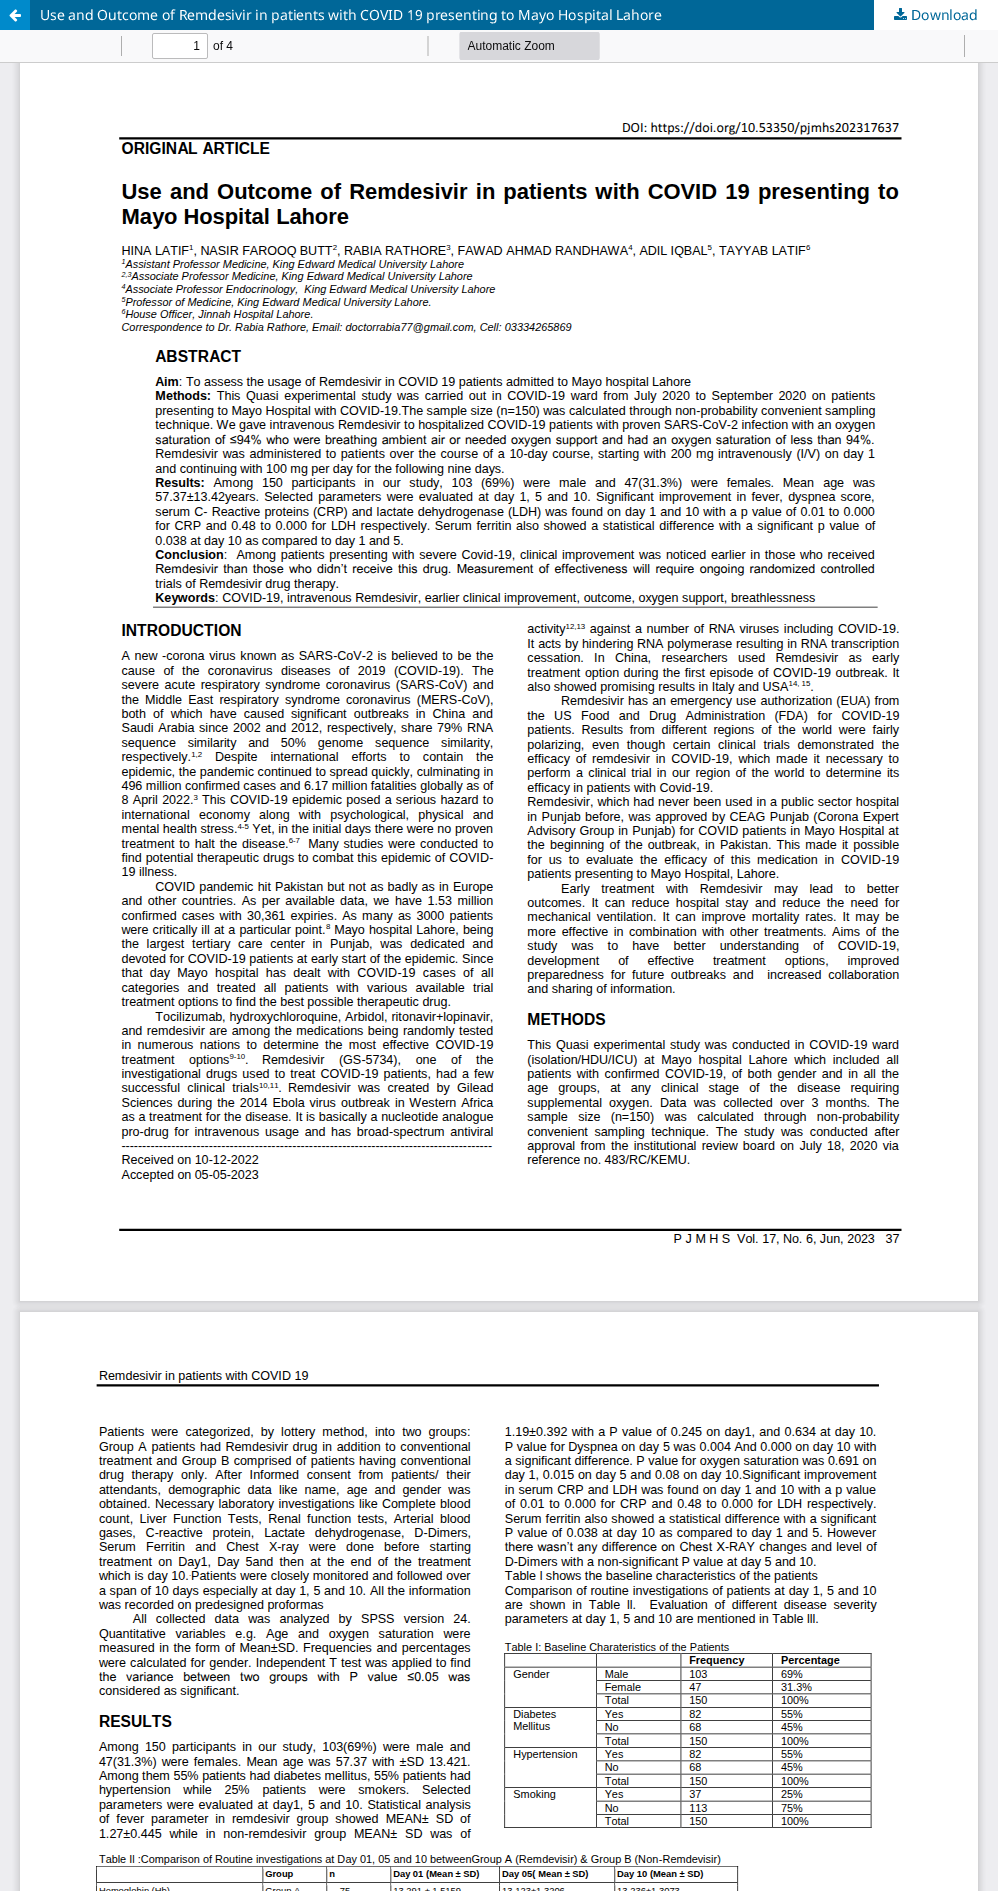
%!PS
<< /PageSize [998 1891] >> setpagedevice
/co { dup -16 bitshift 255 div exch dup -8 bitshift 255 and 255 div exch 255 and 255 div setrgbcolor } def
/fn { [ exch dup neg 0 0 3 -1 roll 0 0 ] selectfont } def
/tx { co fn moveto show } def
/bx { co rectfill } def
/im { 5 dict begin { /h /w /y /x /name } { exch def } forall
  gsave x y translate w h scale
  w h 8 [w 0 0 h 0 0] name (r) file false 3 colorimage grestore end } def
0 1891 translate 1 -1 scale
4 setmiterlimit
0 0 998 1891 16#FFFFFF bx
30 0 844 30 16#006798 bx
0 0 30 30 16#008ACB bx
(media/1.raw) 9 9 12 13 im
(media/2.raw) 894 8 13 12 im
(media/3.raw) 0 30 998 1861 im
(Use and Outcome of Remdesivir in patients with COVID 19 presenting to Mayo Hospital Lahore) 40 20 /NotoSans-Regular 14 16#FFFFFF tx
(Download) 911 20 /NotoSans-Regular 14 16#006798 tx
showpage
